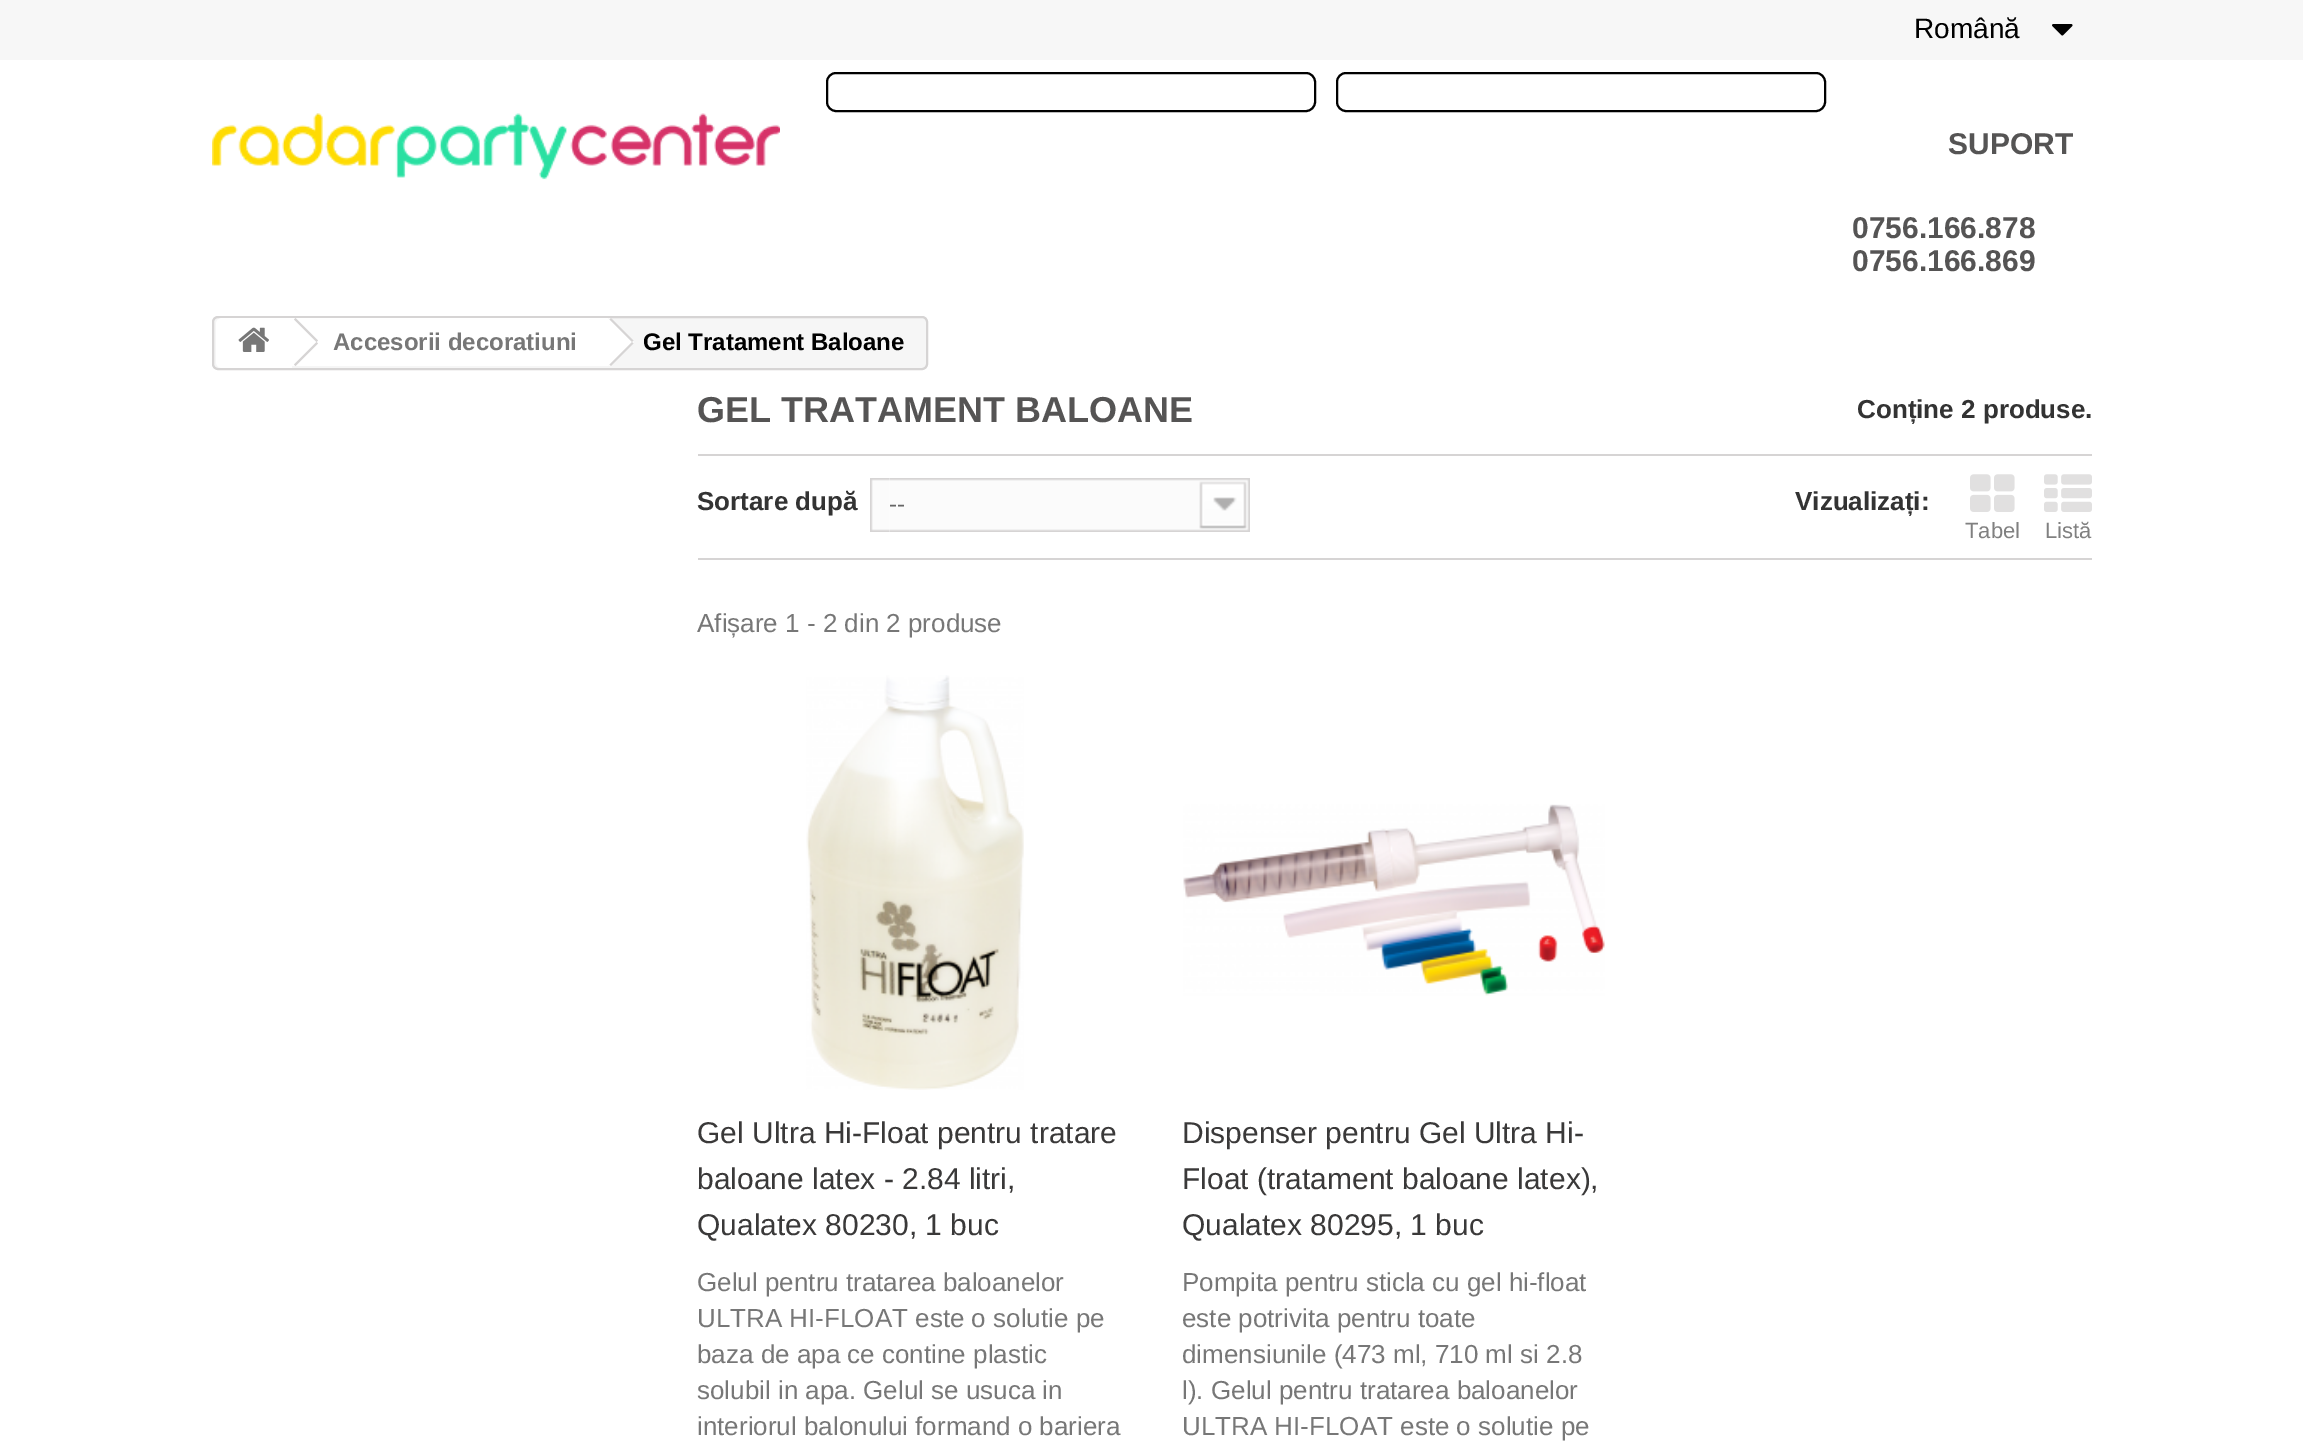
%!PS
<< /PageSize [2303 1441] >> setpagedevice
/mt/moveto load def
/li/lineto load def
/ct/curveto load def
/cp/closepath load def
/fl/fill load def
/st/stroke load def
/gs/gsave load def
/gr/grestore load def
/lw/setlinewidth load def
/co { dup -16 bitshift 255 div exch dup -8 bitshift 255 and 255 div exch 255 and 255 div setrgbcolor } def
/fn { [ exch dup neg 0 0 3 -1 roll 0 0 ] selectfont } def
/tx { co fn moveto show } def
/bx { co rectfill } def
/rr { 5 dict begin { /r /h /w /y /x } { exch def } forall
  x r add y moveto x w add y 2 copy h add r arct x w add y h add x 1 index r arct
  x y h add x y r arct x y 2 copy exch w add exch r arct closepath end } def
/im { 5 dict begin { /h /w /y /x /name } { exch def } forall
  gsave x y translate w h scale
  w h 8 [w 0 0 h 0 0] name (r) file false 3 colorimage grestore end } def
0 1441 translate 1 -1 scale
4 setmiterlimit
0 0 2303 1441 16#FFFFFF bx
0 0 2303 60 16#F7F7F7 bx
(media/1.raw) 2052 24 21 12 im
(media/2.raw) 212 113 568 67 im
16#000000 co
2 lw
827 73 488 38 9 rr st
1337 73 488 38 9 rr st
16#F6F6F6 co
213 317 714 52 5 rr gs fl gr
16#D6D4D4 co
st
16#FFFFFF co
222 318 mt 292 318 li 292 368 li 222 368 li 218.5 368 216 365.5 216 362 ct 216 324 li 216 320.5 218.5 318 222 318 ct cp fl
(media/3.raw) 238 327 31 25 im
292 318 316 48 16#FFFFFF bx
16#D6D4D4 co
295.5 318 mt 318 340.5 li 316.5 342 li 294 319.5 li cp 316.5 342 mt 318 343.5 li 295.5 366 li 294 364.5 li cp fl
16#FFFFFF co
612 319 mt 632 339 li 634 341 634 343 632 345 ct 612 365 li 611 366 608 366 607 365 ct 587 345 li 585 343 585 341 587 339 ct 607 319 li 608 318 611 318 612 319 ct cp fl
16#D6D4D4 co
611 318 mt 633.5 340.5 li 632 342 li 609.5 319.5 li cp 632 342 mt 633.5 343.5 li 611 366 li 609.5 364.5 li cp fl
698 454 1394 2 16#D6D4D4 bx
698 558 1394 2 16#D6D4D4 bx
(media/4.raw) 870 478 20 54 im
(media/5.raw) 890 478 360 54 im
(media/6.raw) 1970 474 45 38 im
(media/7.raw) 2044 474 48 38 im
(media/8.raw) 806 675 218 415 im
(media/9.raw) 1183 804 422 192 im
(Română) 1914 38 /LiberationSans-Regular 28 16#000000 tx
(SUPORT) 1948 154 /LiberationSans-Bold 30 16#555454 tx
(0756.166.878) 1852 238 /LiberationSans-Bold 30 16#555454 tx
(0756.166.869) 1852 271 /LiberationSans-Bold 30 16#555454 tx
(Accesorii decoratiuni) 333 350 /LiberationSans-Bold 24 16#777777 tx
(Gel Tratament Baloane) 643 350 /LiberationSans-Bold 24 16#000000 tx
(GEL TRATAMENT BALOANE) 697 422 /LiberationSans-Bold 36 16#555454 tx
(Conține 2 produse.) 1857 418 /LiberationSans-Bold 26 16#333333 tx
(Sortare după) 697 510 /LiberationSans-Bold 26 16#333333 tx
(--) 889 512 /LiberationSans-Regular 24 16#666666 tx
(Vizualizați:) 1795 510 /LiberationSans-Bold 26 16#333333 tx
(Tabel) 1965 538 /LiberationSans-Regular 22 16#808080 tx
(Listă) 2045 538 /LiberationSans-Regular 22 16#808080 tx
(Afișare 1 - 2 din 2 produse) 697 632 /LiberationSans-Regular 26 16#777777 tx
(Gel Ultra Hi-Float pentru tratare) 697 1143 /LiberationSans-Regular 30 16#3A3939 tx
(baloane latex - 2.84 litri,) 697 1189 /LiberationSans-Regular 30 16#3A3939 tx
(Qualatex 80230, 1 buc) 697 1235 /LiberationSans-Regular 30 16#3A3939 tx
(Gelul pentru tratarea baloanelor) 697 1291 /LiberationSans-Regular 26 16#777777 tx
(ULTRA HI-FLOAT este o solutie pe) 697 1327 /LiberationSans-Regular 26 16#777777 tx
(baza de apa ce contine plastic) 697 1363 /LiberationSans-Regular 26 16#777777 tx
(solubil in apa. Gelul se usuca in) 697 1399 /LiberationSans-Regular 26 16#777777 tx
(interiorul balonului formand o bariera) 697 1435 /LiberationSans-Regular 26 16#777777 tx
(Dispenser pentru Gel Ultra Hi-) 1182 1143 /LiberationSans-Regular 30 16#3A3939 tx
(Float \(tratament baloane latex\),) 1182 1189 /LiberationSans-Regular 30 16#3A3939 tx
(Qualatex 80295, 1 buc) 1182 1235 /LiberationSans-Regular 30 16#3A3939 tx
(Pompita pentru sticla cu gel hi-float) 1182 1291 /LiberationSans-Regular 26 16#777777 tx
(este potrivita pentru toate) 1182 1327 /LiberationSans-Regular 26 16#777777 tx
(dimensiunile \(473 ml, 710 ml si 2.8) 1182 1363 /LiberationSans-Regular 26 16#777777 tx
(l\). Gelul pentru tratarea baloanelor) 1182 1399 /LiberationSans-Regular 26 16#777777 tx
(ULTRA HI-FLOAT este o solutie pe) 1182 1435 /LiberationSans-Regular 26 16#777777 tx
showpage
